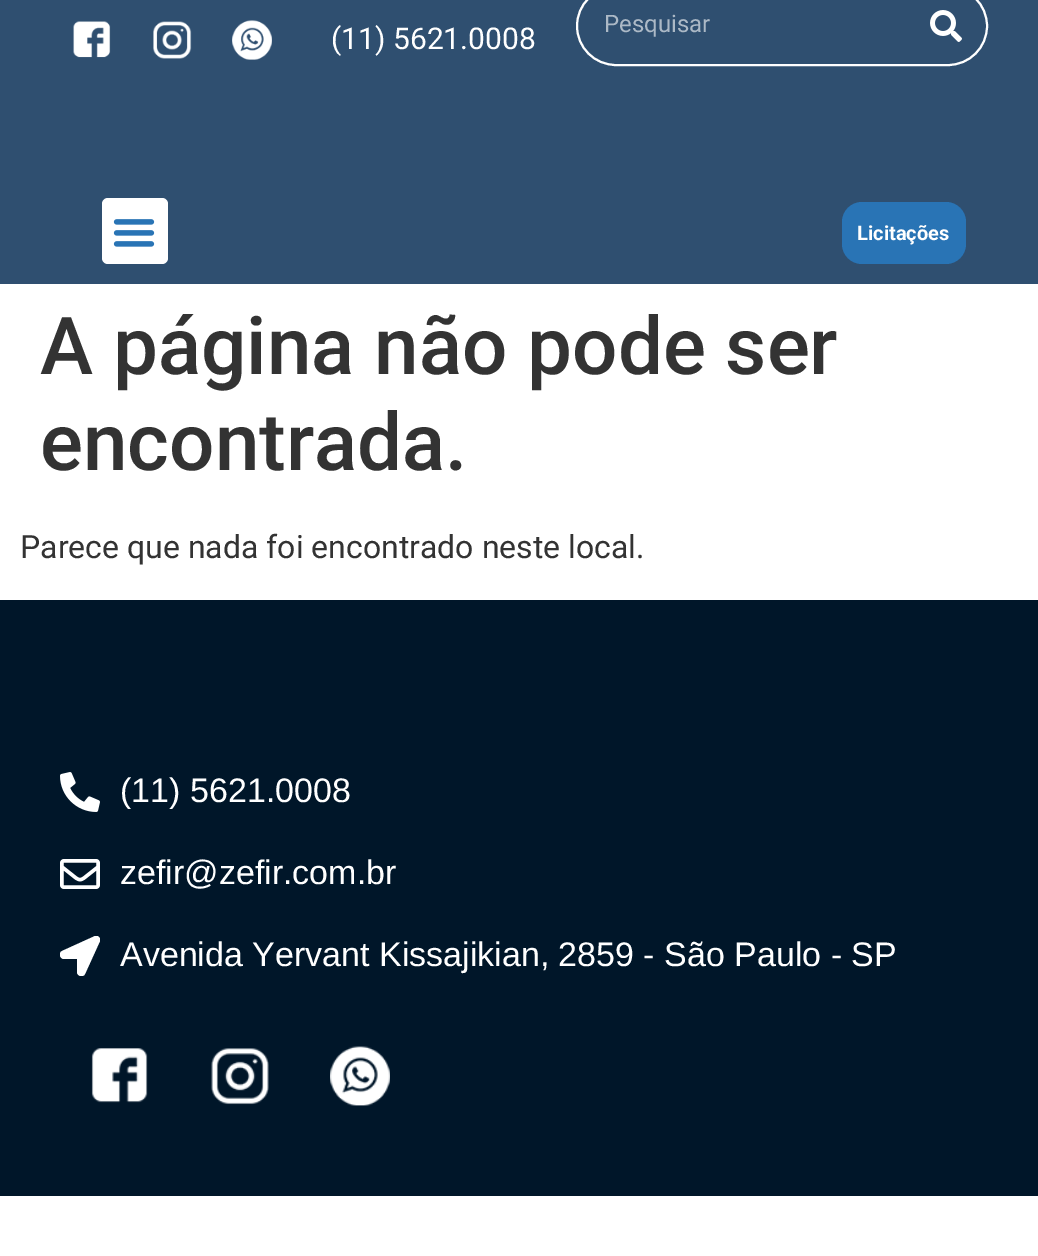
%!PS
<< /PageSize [1038 1256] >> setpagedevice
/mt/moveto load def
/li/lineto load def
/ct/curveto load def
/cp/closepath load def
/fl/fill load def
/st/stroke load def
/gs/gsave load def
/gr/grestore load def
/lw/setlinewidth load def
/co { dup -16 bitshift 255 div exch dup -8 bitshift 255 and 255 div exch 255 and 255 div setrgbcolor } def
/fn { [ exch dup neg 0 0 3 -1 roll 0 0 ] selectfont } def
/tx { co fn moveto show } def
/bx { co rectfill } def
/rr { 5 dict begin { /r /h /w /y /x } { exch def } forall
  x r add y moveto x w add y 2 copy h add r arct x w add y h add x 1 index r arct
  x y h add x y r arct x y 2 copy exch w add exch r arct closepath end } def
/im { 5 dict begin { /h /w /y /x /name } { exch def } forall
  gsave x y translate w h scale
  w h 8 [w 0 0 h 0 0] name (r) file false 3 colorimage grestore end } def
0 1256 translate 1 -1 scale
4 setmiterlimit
0 0 1038 1256 16#FFFFFF bx
0 0 1038 284 16#2F4F70 bx
(media/1.raw) 73 21 38 37 im
(media/2.raw) 153 21 39 38 im
(media/3.raw) 232 20 40 40 im
16#FFFFFF co
2 lw
577 -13 410 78 39 rr st
(media/4.raw) 930 10 32 32 im
102 198 66 66 6 rr fl
(media/5.raw) 113 219 42 28 im
16#2974B5 co
842 202 124 62 20 rr fl
0 600 1038 596 16#001629 bx
(media/6.raw) 60 772 40 40 im
(media/7.raw) 60 859 40 30 im
gs
60 936 40 40 rectclip
16#FFFFFF co
95 936 mt 62 951 li 58 953 60 959 64 959 ct 77 959 li 77 972 li 77 976 83 978 85 974 ct 100 941 li 101 938 98 935 95 936 ct cp fl
gr
(media/8.raw) 91 1048 57 55 im
(media/9.raw) 211 1048 58 57 im
(media/10.raw) 330 1046 60 60 im
(\(11\) 5621.0008) 331 49 /Roboto-Regular 30 16#FFFFFF tx
(Pesquisar) 604 32 /Roboto-Regular 24 16#ACB9C6 tx
(Licitações) 857 240 /Roboto-Bold 20 16#FFFFFF tx
(A página não pode ser) 40 374 /Roboto-Medium 80 16#333333 tx
(encontrada.) 40 470 /Roboto-Medium 80 16#333333 tx
(Parece que nada foi encontrado neste local.) 20 558 /Roboto-Regular 32 16#333333 tx
(\(11\) 5621.0008) 120 802 /LiberationSans-Regular 34 16#FFFFFF tx
(zefir@zefir.com.br) 120 884 /LiberationSans-Regular 34 16#FFFFFF tx
(Avenida Yervant Kissajikian, 2859 - São Paulo - SP) 120 966 /LiberationSans-Regular 34 16#FFFFFF tx
showpage
